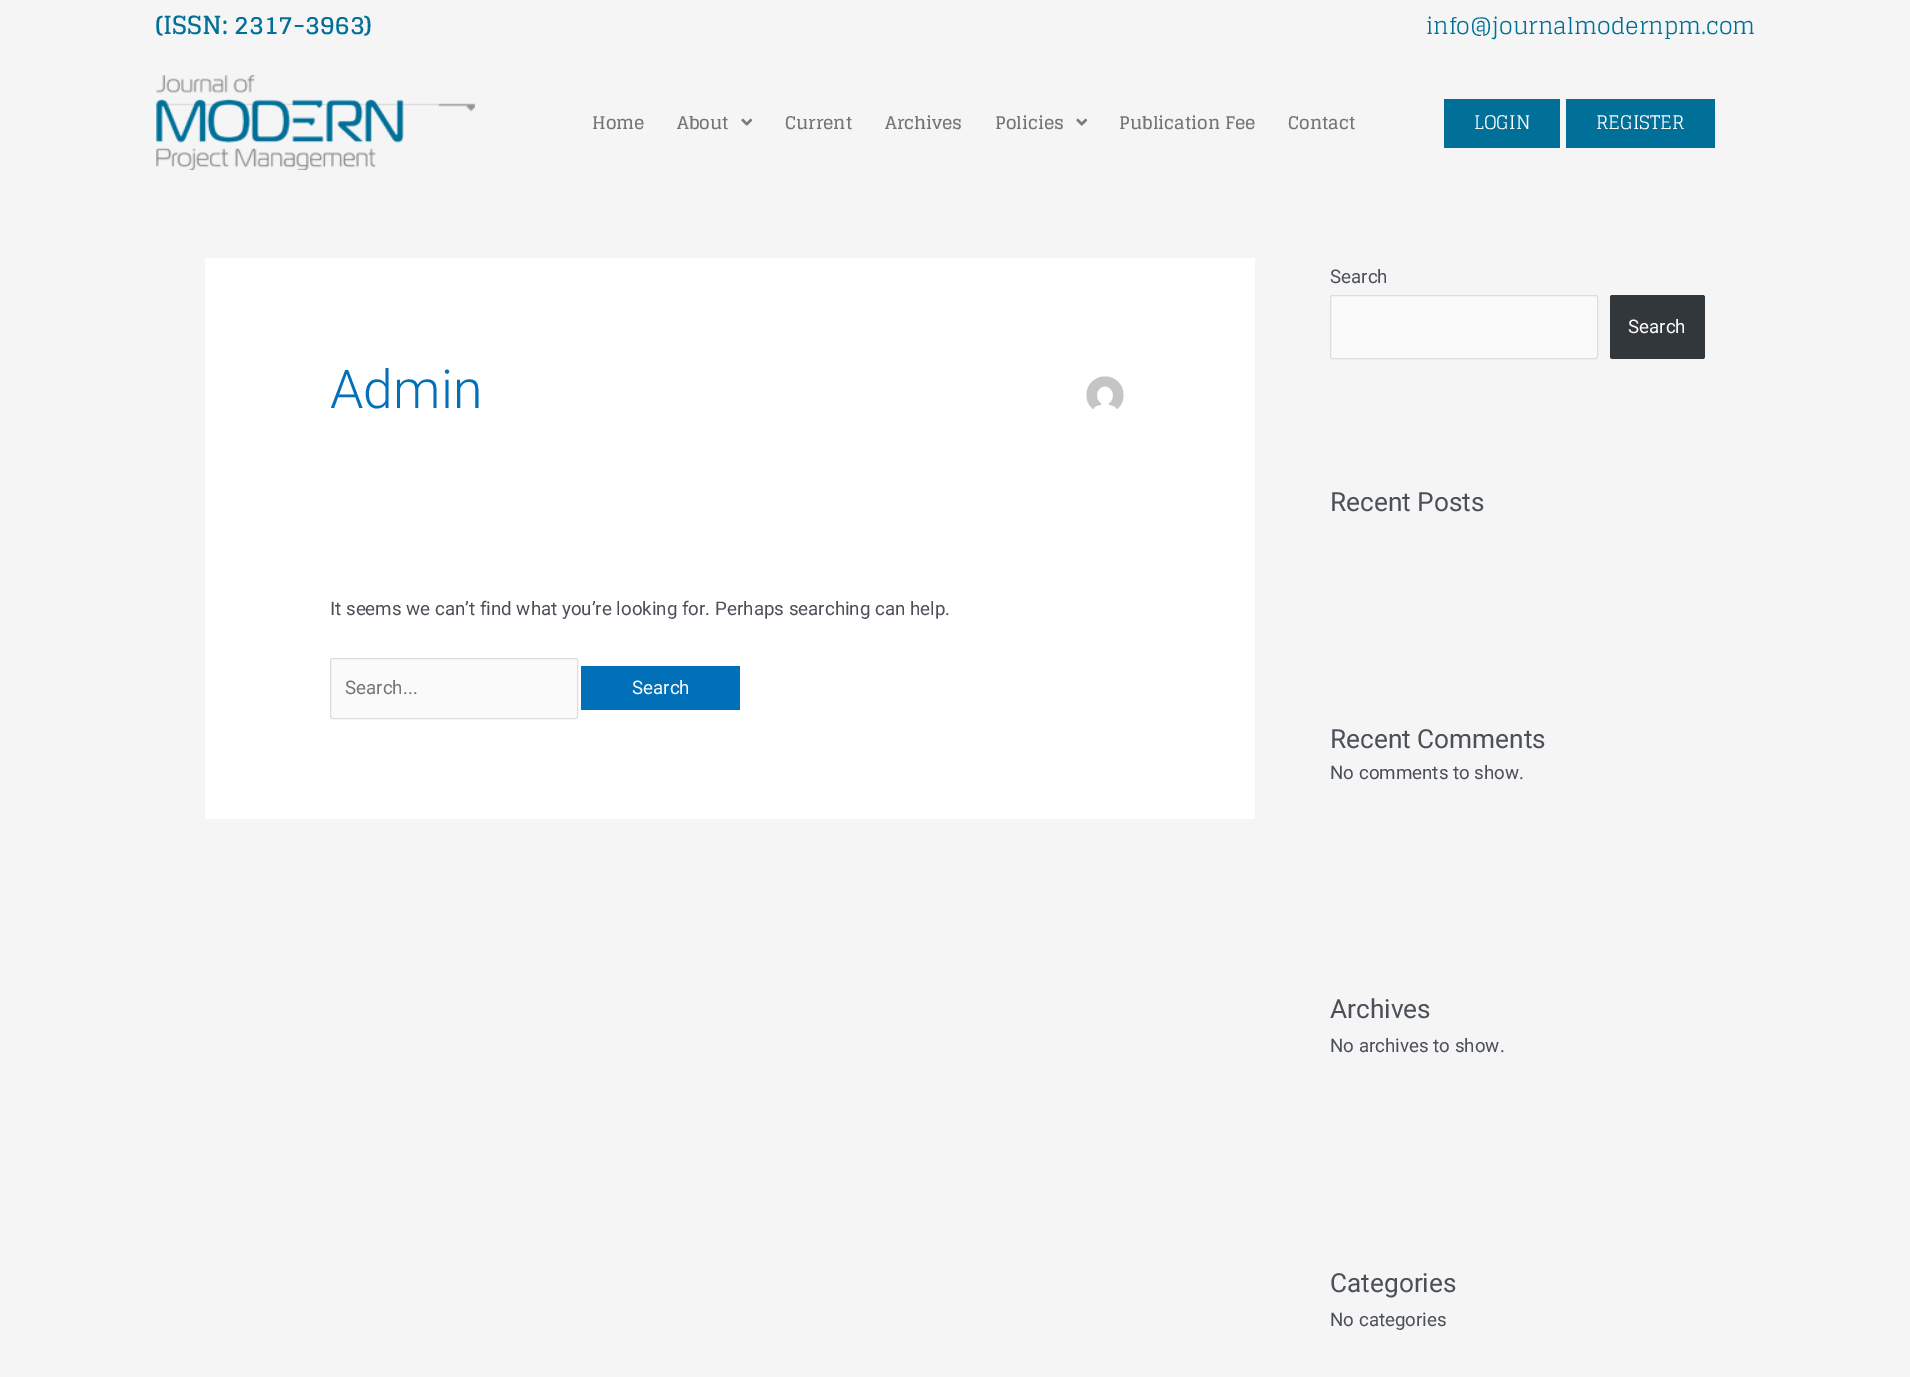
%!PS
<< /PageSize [1910 1377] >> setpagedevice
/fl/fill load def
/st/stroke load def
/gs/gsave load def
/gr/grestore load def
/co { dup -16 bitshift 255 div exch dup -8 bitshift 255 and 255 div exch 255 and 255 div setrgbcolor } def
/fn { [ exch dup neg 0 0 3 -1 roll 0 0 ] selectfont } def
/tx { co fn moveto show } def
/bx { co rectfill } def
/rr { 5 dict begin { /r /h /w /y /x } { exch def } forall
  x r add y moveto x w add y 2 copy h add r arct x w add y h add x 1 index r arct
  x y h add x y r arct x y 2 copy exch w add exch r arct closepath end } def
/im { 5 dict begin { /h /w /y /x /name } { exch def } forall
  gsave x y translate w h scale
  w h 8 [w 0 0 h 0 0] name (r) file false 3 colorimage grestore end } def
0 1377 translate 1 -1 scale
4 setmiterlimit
0 0 1910 1377 16#F5F5F5 bx
(media/1.raw) 155 75 320 95 im
(media/2.raw) 741 118 12 8 im
(media/2.raw) 1076 118 12 8 im
1444 99 116 49 16#007098 bx
1566 99 149 49 16#007098 bx
205 258 1050 561 16#FFFFFF bx
(media/3.raw) 1086 376 38 33 im
16#FAFAFA co
330.5 658.5 247 60 2 rr gs fl gr
16#DDDDDD co
st
581 666 159 44 16#0170B9 bx
16#FAFAFA co
1330.5 295.5 267 63 2 rr gs fl gr
16#DDDDDD co
st
16#32373C co
1610 295 95 64 2.5 rr fl
(\(ISSN: 2317-3963\)) 155 34 /Glegoo-Bold 25 16#007098 tx
(info@journalmodernpm.com) 1426 34 /Glegoo-Regular 22.5 16#007098 tx
(Home) 592 129 /Glegoo-Bold 17.5 16#757575 tx
(About) 677 129 /Glegoo-Bold 17.5 16#757575 tx
(Current) 785 129 /Glegoo-Bold 17.5 16#757575 tx
(Archives) 885 129 /Glegoo-Bold 17.5 16#757575 tx
(Policies) 995 129 /Glegoo-Bold 17.5 16#757575 tx
(Publication Fee) 1119 129 /Glegoo-Bold 17.5 16#757575 tx
(Contact) 1288 129 /Glegoo-Bold 17.5 16#757575 tx
(LOGIN) 1474 129 /Glegoo-Regular 18.75 16#FFFFFF tx
(REGISTER) 1596 129 /Glegoo-Regular 18.75 16#FFFFFF tx
(Admin) 330 408 /Roboto-Light 53.5 16#0170B9 tx
(It seems we can’t find what you’re looking for. Perhaps searching can help.) 330 615 /Roboto-Regular 18.75 16#4B4F58 tx
(Search...) 345 694 /Roboto-Regular 18.75 16#757575 tx
(Search) 632 694 /Roboto-Regular 18.75 16#FFFFFF tx
(Search) 1330 283 /Roboto-Regular 18.75 16#4B4F58 tx
(Search) 1628 333 /Roboto-Regular 18.75 16#FFFFFF tx
(Recent Posts) 1330 511 /Roboto-Regular 26.25 16#4B4F58 tx
(Recent Comments) 1330 748 /Roboto-Regular 26.25 16#4B4F58 tx
(No comments to show.) 1330 779 /Roboto-Regular 18.75 16#4B4F58 tx
(Archives) 1330 1018 /Roboto-Regular 26.25 16#4B4F58 tx
(No archives to show.) 1330 1052 /Roboto-Regular 18.75 16#4B4F58 tx
(Categories) 1330 1292 /Roboto-Regular 26.25 16#4B4F58 tx
(No categories) 1330 1326 /Roboto-Regular 18.75 16#4B4F58 tx
showpage
